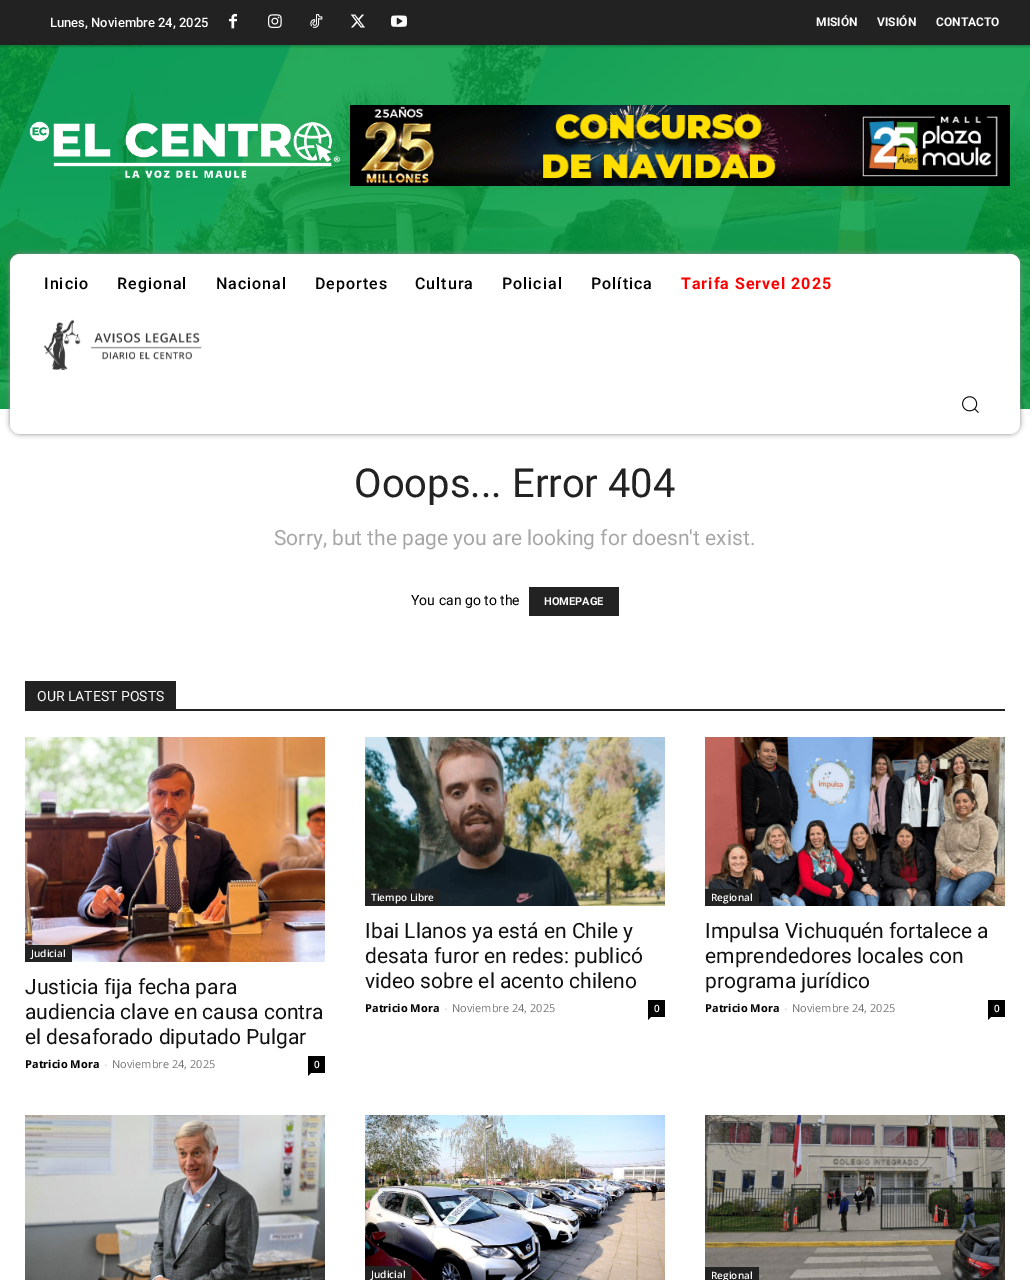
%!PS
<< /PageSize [1030 1280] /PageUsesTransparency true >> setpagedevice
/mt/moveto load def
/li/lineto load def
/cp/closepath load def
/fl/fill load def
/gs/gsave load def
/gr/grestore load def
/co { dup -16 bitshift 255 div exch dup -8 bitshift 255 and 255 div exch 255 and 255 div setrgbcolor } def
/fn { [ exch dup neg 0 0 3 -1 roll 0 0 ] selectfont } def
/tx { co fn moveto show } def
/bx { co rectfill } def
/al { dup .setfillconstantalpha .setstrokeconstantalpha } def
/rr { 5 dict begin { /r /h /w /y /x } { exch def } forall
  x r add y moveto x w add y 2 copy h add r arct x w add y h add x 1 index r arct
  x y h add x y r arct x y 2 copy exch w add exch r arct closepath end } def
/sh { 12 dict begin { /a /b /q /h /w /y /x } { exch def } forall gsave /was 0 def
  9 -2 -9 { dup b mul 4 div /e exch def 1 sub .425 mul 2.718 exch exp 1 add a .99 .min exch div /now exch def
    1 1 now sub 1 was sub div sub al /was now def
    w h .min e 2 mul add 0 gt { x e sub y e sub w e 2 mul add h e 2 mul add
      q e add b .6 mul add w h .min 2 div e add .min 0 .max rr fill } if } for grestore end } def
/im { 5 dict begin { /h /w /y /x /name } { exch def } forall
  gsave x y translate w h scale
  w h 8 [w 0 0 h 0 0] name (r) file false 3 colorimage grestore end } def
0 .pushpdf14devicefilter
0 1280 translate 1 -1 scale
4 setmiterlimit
0 0 1030 1280 16#FFFFFF bx
0 0 1030 45 16#222222 bx
(media/1.raw) 229 13 8 16 im
(media/2.raw) 268 14 14 14 im
(media/3.raw) 310 14 13 14 im
(media/4.raw) 350 14 15 14 im
(media/5.raw) 391 15 16 12 im
(media/6.raw) 0 45 1030 364 im
gs
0 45 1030 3 rectclip
16#000000 co
0 2 1030 45 0 1 .19 sh
gr
(media/7.raw) 29 121 312 57 im
(media/8.raw) 350 105 660 81 im
16#888888 co
10 254 1010 180 10 2.5 1 sh
16#FFFFFF co
10 254 1010 180 10 rr fl
(media/9.raw) 44 319 158 51 im
(media/10.raw) 962 396 17 17 im
529 587 90 29 16#222222 bx
25 709 980 2 16#222222 bx
25 681 151 28 16#222222 bx
(media/11.raw) 25 737 300 225 im
25 945 47 17 16#222222 bx
308 1056 17 17 16#000000 bx
308 1073 mt 311 1073 li 308 1076 li cp fl
(media/12.raw) 365 737 300 169 im
365 889 75 17 16#222222 bx
648 1000 17 17 16#000000 bx
648 1017 mt 651 1017 li 648 1020 li cp fl
(media/13.raw) 705 737 300 169 im
705 889 54 17 16#222222 bx
988 1000 17 17 16#000000 bx
988 1017 mt 991 1017 li 988 1020 li cp fl
(media/14.raw) 25 1115 300 165 im
(media/15.raw) 365 1115 300 165 im
365 1266 47 14 16#222222 bx
(media/16.raw) 705 1115 300 165 im
705 1267 54 13 16#222222 bx
(Lunes, Noviembre 24, 2025) 50 27 /Roboto-Medium 13 16#FFFFFF tx
(MISIÓN) 816 26 /Roboto-Bold 12 16#FFFFFF tx
(VISIÓN) 877 26 /Roboto-Bold 12 16#FFFFFF tx
(CONTACTO) 936 26 /Roboto-Bold 12 16#FFFFFF tx
/Roboto-Medium 16 fn
16#000000 co
44 289 mt 1 0 (Inicio) ashow
117 289 mt 1 0 (Regional) ashow
216 289 mt 1 0 (Nacional) ashow
315 289 mt 1 0 (Deportes) ashow
415 289 mt 1 0 (Cultura) ashow
502 289 mt 1 0 (Policial) ashow
591 289 mt 1 0 (Política) ashow
/Roboto-Bold 16 fn
16#FF0000 co
681 289 mt 1 0 (Tarifa Servel 2025) ashow
(Ooops... Error 404) 354 497 /Roboto-Regular 40 16#222222 tx
(Sorry, but the page you are looking for doesn't exist.) 274 545 /Roboto-Regular 21 16#A6A6A6 tx
(You can go to the) 411 605 /Roboto-Regular 14 16#000000 tx
(HOMEPAGE) 544 605 /Roboto-Bold 11 16#FFFFFF tx
(OUR LATEST POSTS) 37 701 /Roboto-Regular 14 16#FFFFFF tx
(Judicial) 31 957 /OpenSans-SemiBold 10 16#FFFFFF tx
(Justicia fija fecha para) 25 994 /Roboto-Regular 21 16#111111 tx
(audiencia clave en causa contra) 25 1019 /Roboto-Regular 21 16#111111 tx
(el desaforado diputado Pulgar) 25 1044 /Roboto-Regular 21 16#111111 tx
(Patricio Mora) 25 1068 /OpenSans-Bold 11 16#000000 tx
(-) 104 1068 /OpenSans-Regular 11 16#CCCCCC tx
(Noviembre 24, 2025) 112 1068 /OpenSans-Regular 11 16#767676 tx
(0) 314 1068 /OpenSans-SemiBold 10 16#FFFFFF tx
(Tiempo Libre) 371 901 /OpenSans-SemiBold 10 16#FFFFFF tx
(Ibai Llanos ya está en Chile y) 365 938 /Roboto-Regular 21 16#111111 tx
(desata furor en redes: publicó) 365 963 /Roboto-Regular 21 16#111111 tx
(video sobre el acento chileno) 365 988 /Roboto-Regular 21 16#111111 tx
(Patricio Mora) 365 1012 /OpenSans-Bold 11 16#000000 tx
(-) 444 1012 /OpenSans-Regular 11 16#CCCCCC tx
(Noviembre 24, 2025) 452 1012 /OpenSans-Regular 11 16#767676 tx
(0) 654 1012 /OpenSans-SemiBold 10 16#FFFFFF tx
(Regional) 711 901 /OpenSans-SemiBold 10 16#FFFFFF tx
(Impulsa Vichuquén fortalece a) 705 938 /Roboto-Regular 21 16#111111 tx
(emprendedores locales con) 705 963 /Roboto-Regular 21 16#111111 tx
(programa jurídico) 705 988 /Roboto-Regular 21 16#111111 tx
(Patricio Mora) 705 1012 /OpenSans-Bold 11 16#000000 tx
(-) 784 1012 /OpenSans-Regular 11 16#CCCCCC tx
(Noviembre 24, 2025) 792 1012 /OpenSans-Regular 11 16#767676 tx
(0) 994 1012 /OpenSans-SemiBold 10 16#FFFFFF tx
(Judicial) 371 1278 /OpenSans-SemiBold 10 16#FFFFFF tx
(Regional) 711 1279 /OpenSans-SemiBold 10 16#FFFFFF tx
.poppdf14devicefilter showpage
